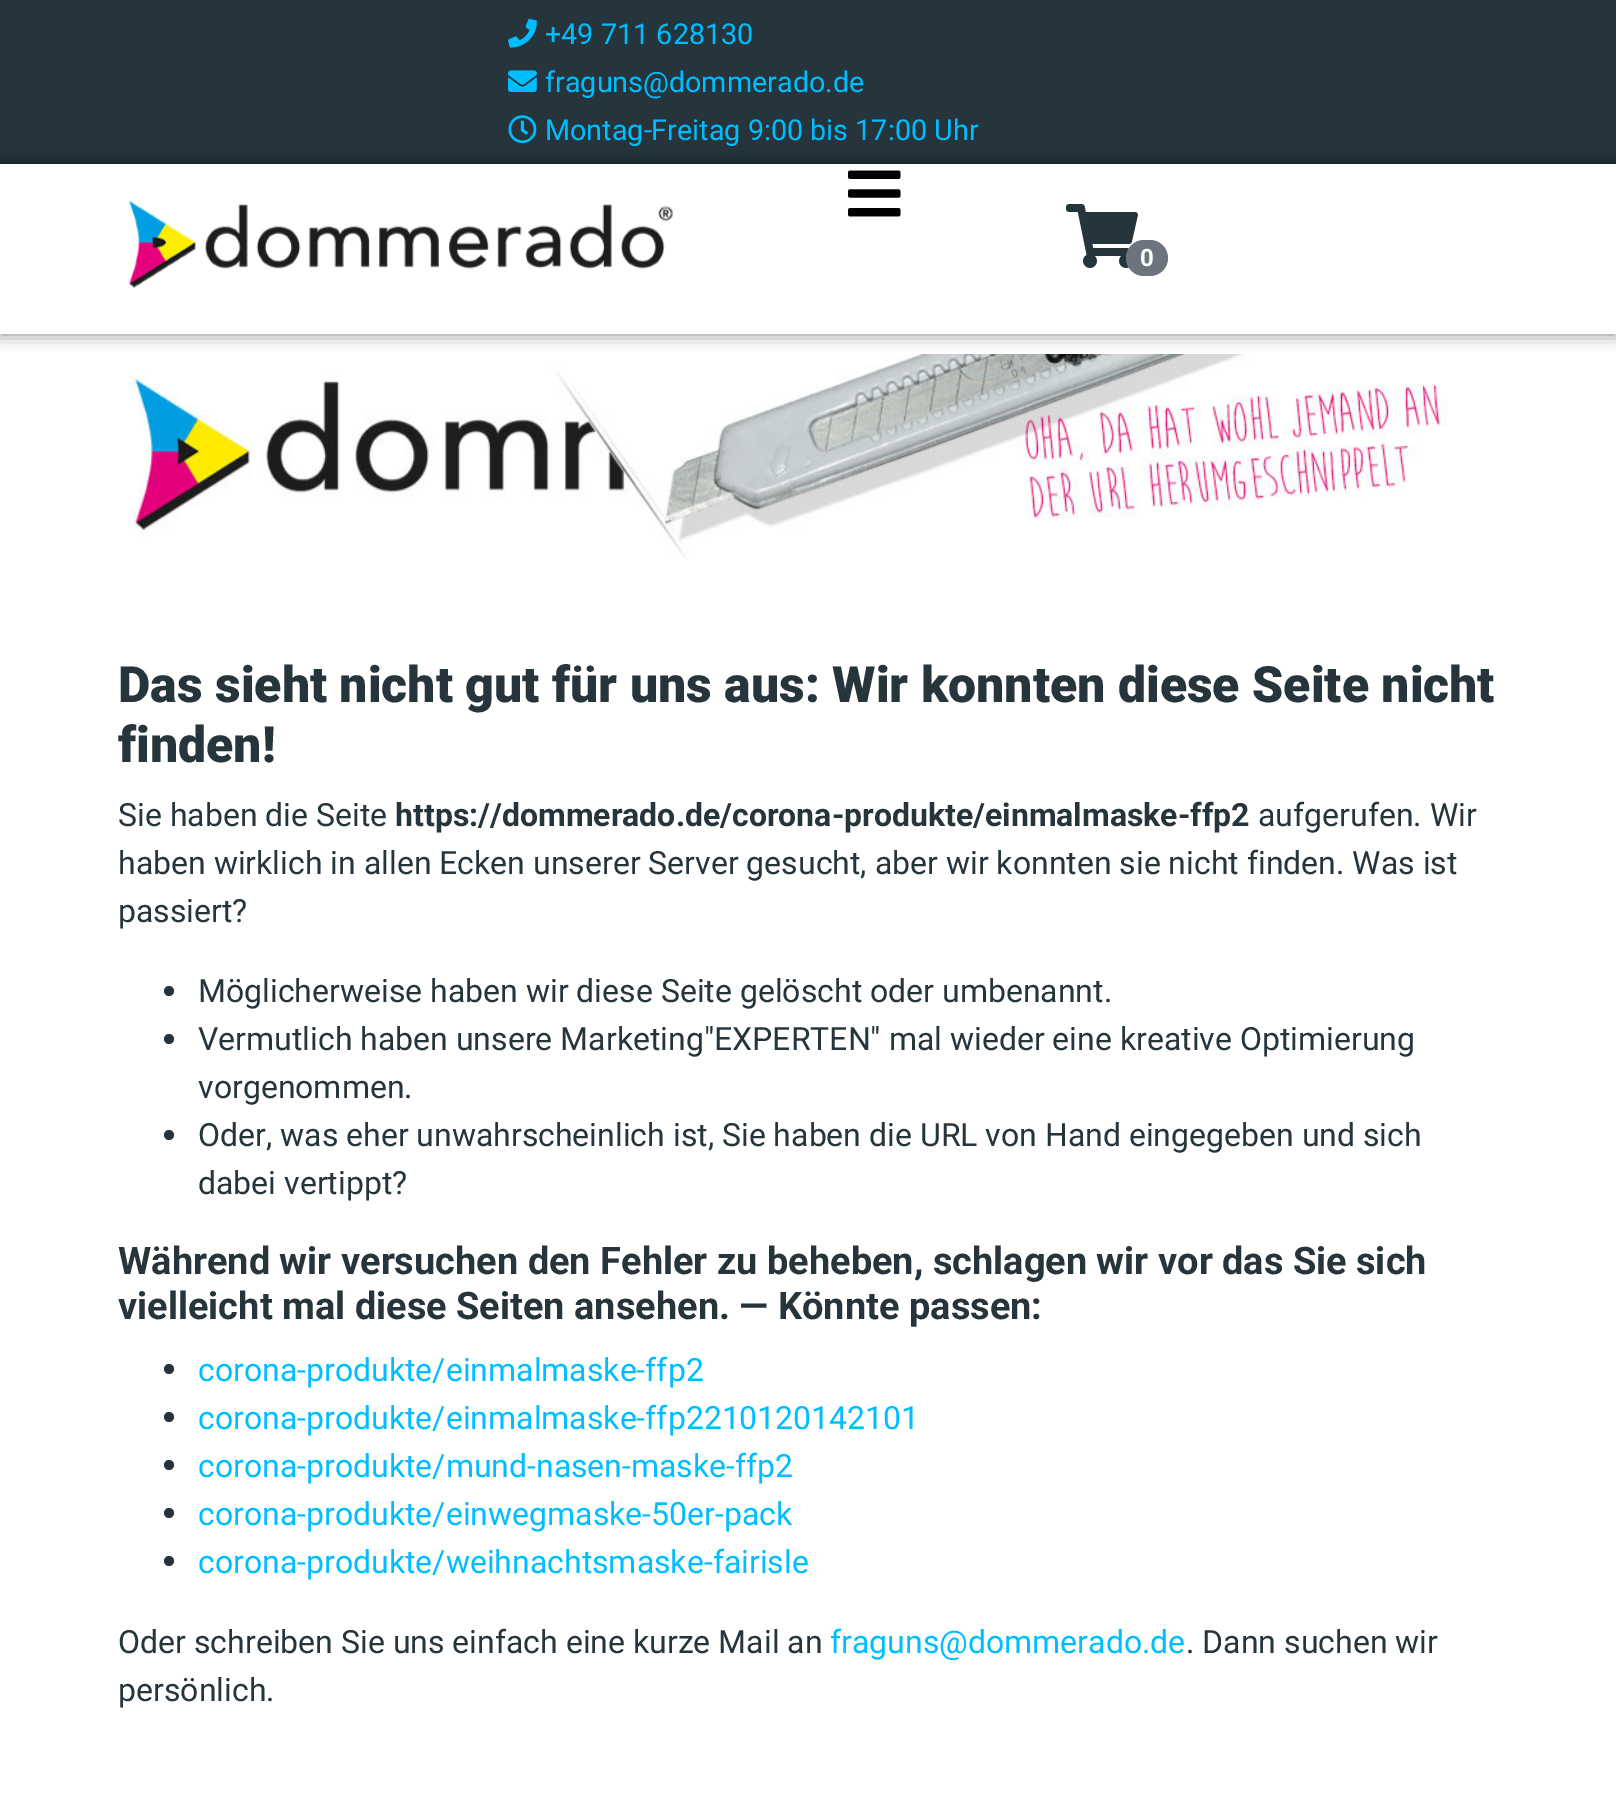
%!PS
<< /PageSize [1616 1808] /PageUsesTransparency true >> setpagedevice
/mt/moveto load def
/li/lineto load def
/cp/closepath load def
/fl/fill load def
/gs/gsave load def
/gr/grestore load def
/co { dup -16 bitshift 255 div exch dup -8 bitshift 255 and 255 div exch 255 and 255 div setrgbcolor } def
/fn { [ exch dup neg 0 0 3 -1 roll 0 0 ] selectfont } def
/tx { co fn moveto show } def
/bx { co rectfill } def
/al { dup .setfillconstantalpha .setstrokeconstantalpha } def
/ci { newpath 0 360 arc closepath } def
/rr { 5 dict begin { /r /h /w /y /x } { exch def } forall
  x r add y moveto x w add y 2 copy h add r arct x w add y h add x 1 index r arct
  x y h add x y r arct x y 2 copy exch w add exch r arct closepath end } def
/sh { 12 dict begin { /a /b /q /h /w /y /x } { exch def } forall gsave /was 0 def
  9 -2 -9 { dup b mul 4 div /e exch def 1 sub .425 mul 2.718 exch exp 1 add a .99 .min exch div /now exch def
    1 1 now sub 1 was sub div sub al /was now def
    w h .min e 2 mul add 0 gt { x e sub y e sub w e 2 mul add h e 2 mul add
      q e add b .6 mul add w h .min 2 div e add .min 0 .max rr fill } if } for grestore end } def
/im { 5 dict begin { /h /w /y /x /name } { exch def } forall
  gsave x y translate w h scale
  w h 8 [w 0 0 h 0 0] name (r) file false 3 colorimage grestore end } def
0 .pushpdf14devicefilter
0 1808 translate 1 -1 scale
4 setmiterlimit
0 0 1616 1808 16#FFFFFF bx
0 0 1616 164 16#26343B bx
(media/1.raw) 508 18 29 30 im
(media/2.raw) 508 70 29 22 im
(media/3.raw) 508 115 29 29 im
(media/7.raw) 128 354 1319 206 im
gs
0 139 mt 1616 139 li 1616 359 li 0 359 li cp 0 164 mt 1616 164 li 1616 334 li 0 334 li cp eoclip newpath
16#000000 co
0 164 1616 170 0 8 .49 sh
gr
(media/4.raw) 129 200 544 88 im
(media/5.raw) 848 170 53 47 im
(media/6.raw) 1066 204 72 64 im
16#6C757D co
1126 240 42 36 18 rr fl
16#26343B co
169 991 5 ci fl
169 1039 5 ci fl
169 1135 5 ci fl
169 1369 5 ci fl
169 1417 5 ci fl
169 1465 5 ci fl
169 1513 5 ci fl
169 1561 5 ci fl
(+49 711 628130) 545 44 /Roboto-Regular 28.75 16#00BDFF tx
(fraguns@dommerado.de) 545 92 /Roboto-Regular 28.75 16#00BDFF tx
(Montag-Freitag 9:00 bis 17:00 Uhr) 545 140 /Roboto-Regular 28.75 16#00BDFF tx
(0) 1140 266 /Roboto-Bold 24 16#FFFFFF tx
(Das sieht nicht gut für uns aus: Wir konnten diese Seite nicht) 118 702 /Roboto-Black 50 16#26343B tx
(finden!) 118 762 /Roboto-Black 50 16#26343B tx
(Sie haben die Seite) 118 826 /Roboto-Regular 32 16#26343B tx
(https://dommerado.de/corona-produkte/einmalmaske-ffp2) 395 826 /Roboto-Bold 32 16#26343B tx
(aufgerufen. Wir) 1258 826 /Roboto-Regular 32 16#26343B tx
(haben wirklich in allen Ecken unserer Server gesucht, aber wir konnten sie nicht finden. Was ist) 118 874 /Roboto-Regular 32 16#26343B tx
(passiert?) 118 922 /Roboto-Regular 32 16#26343B tx
(Möglicherweise haben wir diese Seite gelöscht oder umbenannt.) 198 1002 /Roboto-Regular 32 16#26343B tx
(Vermutlich haben unsere Marketing"EXPERTEN" mal wieder eine kreative Optimierung) 198 1050 /Roboto-Regular 32 16#26343B tx
(vorgenommen.) 198 1098 /Roboto-Regular 32 16#26343B tx
(Oder, was eher unwahrscheinlich ist, Sie haben die URL von Hand eingegeben und sich) 198 1146 /Roboto-Regular 32 16#26343B tx
(dabei vertippt?) 198 1194 /Roboto-Regular 32 16#26343B tx
(Während wir versuchen den Fehler zu beheben, schlagen wir vor das Sie sich) 118 1274 /Roboto-Bold 38 16#26343B tx
(vielleicht mal diese Seiten ansehen. — Könnte passen:) 118 1319 /Roboto-Bold 38 16#26343B tx
(corona-produkte/einmalmaske-ffp2) 198 1381 /Roboto-Regular 32 16#00BDFF tx
(corona-produkte/einmalmaske-ffp2210120142101) 198 1429 /Roboto-Regular 32 16#00BDFF tx
(corona-produkte/mund-nasen-maske-ffp2) 198 1477 /Roboto-Regular 32 16#00BDFF tx
(corona-produkte/einwegmaske-50er-pack) 198 1525 /Roboto-Regular 32 16#00BDFF tx
(corona-produkte/weihnachtsmaske-fairisle) 198 1573 /Roboto-Regular 32 16#00BDFF tx
(Oder schreiben Sie uns einfach eine kurze Mail an) 118 1653 /Roboto-Regular 32 16#26343B tx
(fraguns@dommerado.de) 830 1653 /Roboto-Regular 32 16#00BDFF tx
(. Dann suchen wir) 1186 1653 /Roboto-Regular 32 16#26343B tx
(persönlich.) 118 1701 /Roboto-Regular 32 16#26343B tx
.poppdf14devicefilter showpage
